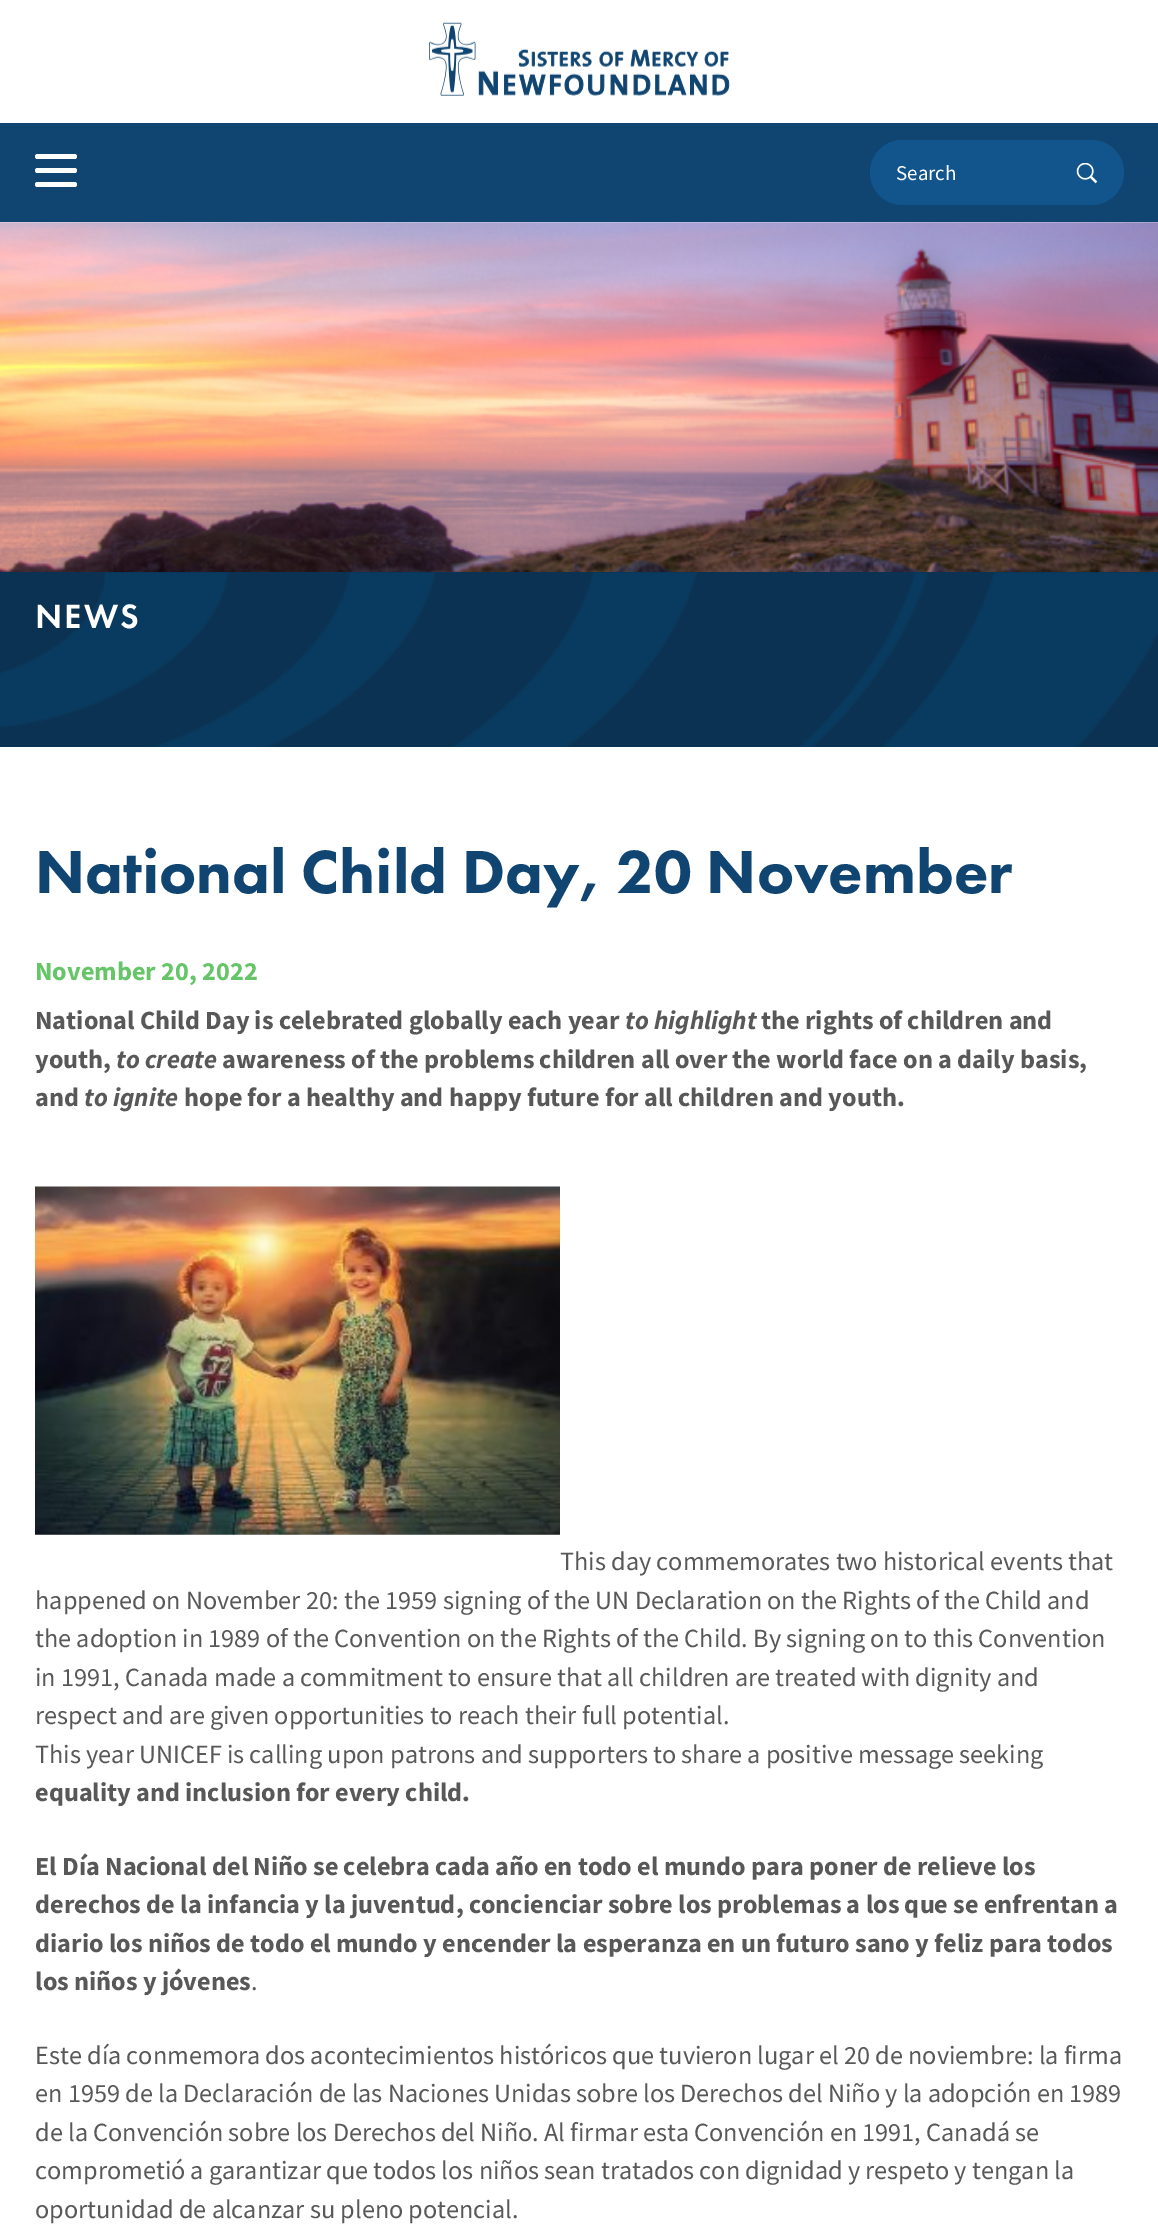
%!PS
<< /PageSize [1158 2224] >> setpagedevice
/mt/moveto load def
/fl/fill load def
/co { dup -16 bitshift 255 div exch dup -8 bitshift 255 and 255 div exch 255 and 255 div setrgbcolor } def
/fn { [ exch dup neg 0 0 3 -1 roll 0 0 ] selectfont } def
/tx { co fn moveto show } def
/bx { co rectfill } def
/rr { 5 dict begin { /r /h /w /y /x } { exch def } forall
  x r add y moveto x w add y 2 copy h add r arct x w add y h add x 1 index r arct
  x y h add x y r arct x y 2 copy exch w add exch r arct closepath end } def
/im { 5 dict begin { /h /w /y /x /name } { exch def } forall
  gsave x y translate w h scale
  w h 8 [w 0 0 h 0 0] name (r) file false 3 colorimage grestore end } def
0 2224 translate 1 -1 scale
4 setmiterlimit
0 0 1158 2224 16#FFFFFF bx
(media/1.raw) 429 22 301 74 im
0 123 1158 99 16#104571 bx
16#FFFFFF co
35 168 42 5 2.5 rr fl
35 154 42 5 2.5 rr fl
35 182 42 5 2.5 rr fl
16#12558D co
870 140 254 65 32.5 rr fl
(media/2.raw) 1076 163 21 21 im
(media/3.raw) 0 222 1158 350 im
0 572 1158 175 16#0B3252 bx
(media/4.raw) 0 572 1158 175 im
(media/5.raw) 35 1186 525 349 im
(Search) 896 180 /SourceSansPro-Regular 21 16#FFFFFF tx
/FuturaPT-Medium 35 fn
35 628 mt 2 0 (NEWS) ashow
(National Child Day, 20 November) 35 893 /FuturaPT-Black 63 16#104571 tx
(November 20, 2022) 35 980 /SourceSansPro-Bold 26.25 16#65C567 tx
(National Child Day is celebrated globally each year) 35 1029 /SourceSansPro-Bold 26.25 16#585858 tx
(to highlight) 625 1029 /SourceSansPro-BoldItalic 26.25 16#585858 tx
(the rights of children and) 761 1029 /SourceSansPro-Bold 26.25 16#585858 tx
(youth,) 35 1068 /SourceSansPro-Bold 26.25 16#585858 tx
(to create) 116 1068 /SourceSansPro-BoldItalic 26.25 16#585858 tx
(awareness of the problems children all over the world face on a daily basis,) 222 1068 /SourceSansPro-Bold 26.25 16#585858 tx
(and) 35 1106 /SourceSansPro-Bold 26.25 16#585858 tx
(to ignite) 84 1106 /SourceSansPro-BoldItalic 26.25 16#585858 tx
(hope for a healthy and happy future for all children and youth.) 184 1106 /SourceSansPro-Bold 26.25 16#585858 tx
(This day commemorates two historical events that) 560 1570 /SourceSansPro-Regular 26.25 16#585858 tx
(happened on November 20: the 1959 signing of the UN Declaration on the Rights of the Child and) 35 1609 /SourceSansPro-Regular 26.25 16#585858 tx
(the adoption in 1989 of the Convention on the Rights of the Child. By signing on to this Convention) 35 1647 /SourceSansPro-Regular 26.25 16#585858 tx
(in 1991, Canada made a commitment to ensure that all children are treated with dignity and) 35 1686 /SourceSansPro-Regular 26.25 16#585858 tx
(respect and are given opportunities to reach their full potential.) 35 1724 /SourceSansPro-Regular 26.25 16#585858 tx
(This year UNICEF is calling upon patrons and supporters to share a positive message seeking) 35 1763 /SourceSansPro-Regular 26.25 16#585858 tx
(equality and inclusion for every child.) 35 1801 /SourceSansPro-Bold 26.25 16#585858 tx
(El Día Nacional del Niño se celebra cada año en todo el mundo para poner de relieve los) 35 1875 /SourceSansPro-Bold 26.25 16#585858 tx
(derechos de la infancia y la juventud, concienciar sobre los problemas a los que se enfrentan a) 35 1913 /SourceSansPro-Bold 26.25 16#585858 tx
(diario los niños de todo el mundo y encender la esperanza en un futuro sano y feliz para todos) 35 1952 /SourceSansPro-Bold 26.25 16#585858 tx
(los niños y jóvenes) 35 1990 /SourceSansPro-Bold 26.25 16#585858 tx
(.) 251 1990 /SourceSansPro-Regular 26.25 16#585858 tx
(Este día conmemora dos acontecimientos históricos que tuvieron lugar el 20 de noviembre: la firma) 35 2064 /SourceSansPro-Regular 26.25 16#585858 tx
(en 1959 de la Declaración de las Naciones Unidas sobre los Derechos del Niño y la adopción en 1989) 35 2102 /SourceSansPro-Regular 26.25 16#585858 tx
(de la Convención sobre los Derechos del Niño. Al firmar esta Convención en 1991, Canadá se) 35 2141 /SourceSansPro-Regular 26.25 16#585858 tx
(comprometió a garantizar que todos los niños sean tratados con dignidad y respeto y tengan la) 35 2179 /SourceSansPro-Regular 26.25 16#585858 tx
(oportunidad de alcanzar su pleno potencial.) 35 2218 /SourceSansPro-Regular 26.25 16#585858 tx
showpage
